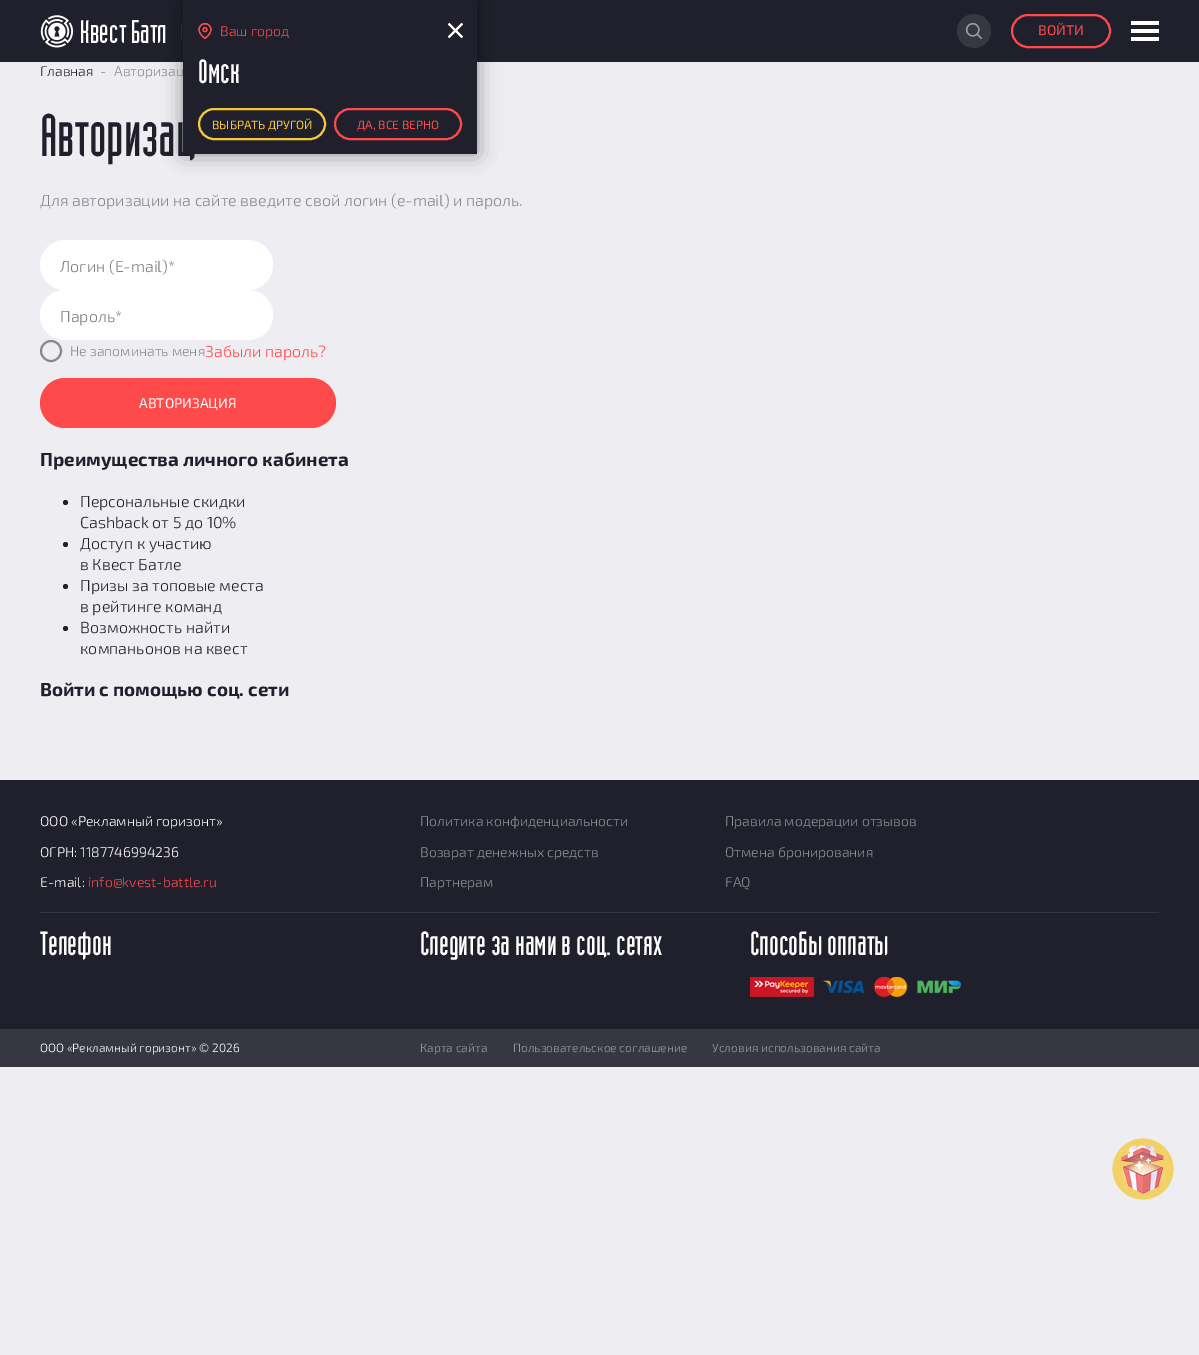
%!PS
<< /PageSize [1199 1355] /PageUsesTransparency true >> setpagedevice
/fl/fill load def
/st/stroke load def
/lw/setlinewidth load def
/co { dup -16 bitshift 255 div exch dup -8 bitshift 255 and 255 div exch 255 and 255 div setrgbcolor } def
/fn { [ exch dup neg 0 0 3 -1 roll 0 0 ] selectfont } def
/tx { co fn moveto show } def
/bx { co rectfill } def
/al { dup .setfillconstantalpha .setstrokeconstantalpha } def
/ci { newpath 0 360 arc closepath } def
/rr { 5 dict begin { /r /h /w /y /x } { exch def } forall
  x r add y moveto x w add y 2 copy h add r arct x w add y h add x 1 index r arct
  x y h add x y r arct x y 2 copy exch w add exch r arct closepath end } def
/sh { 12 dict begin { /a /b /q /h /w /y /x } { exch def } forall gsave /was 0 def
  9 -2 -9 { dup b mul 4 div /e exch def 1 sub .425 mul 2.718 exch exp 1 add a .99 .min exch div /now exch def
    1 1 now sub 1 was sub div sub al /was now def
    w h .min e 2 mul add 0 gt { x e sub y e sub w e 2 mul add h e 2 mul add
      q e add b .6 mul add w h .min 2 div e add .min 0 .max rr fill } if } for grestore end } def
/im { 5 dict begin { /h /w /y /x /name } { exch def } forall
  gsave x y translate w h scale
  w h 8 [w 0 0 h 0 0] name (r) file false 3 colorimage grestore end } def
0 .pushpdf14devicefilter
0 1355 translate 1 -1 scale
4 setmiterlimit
0 0 1199 1355 16#EEEEF2 bx
0 0 1199 62 16#20202D bx
(media/1.raw) 40 15 126 33 im
181 23 1 16 16#363642 bx
16#000000 co
183 0 294 154 0 10 .4 sh
16#373742 co
974 31 17 ci fl
(media/4.raw) 966 23 16 16 im
16#FE4A4B co
2 lw
1012 15 98 32 16 rr st
1131 21 28 4 16#FFFFFF bx
1131 29 28 4 16#FFFFFF bx
1131 37 28 4 16#FFFFFF bx
40 240 233 50 25 rr fl
40 290 233 50 25 rr fl
16#878790 co
51 351 10 ci st
16#FE4A4B co
40 378 296 50 25 rr fl
16#20202D co
65.5 502.5 2.5 ci fl
65.5 544.5 2.5 ci fl
65.5 586.5 2.5 ci fl
65.5 628.5 2.5 ci fl
0 780 1199 249 16#20202D bx
40 912 1119 1 16#363642 bx
(media/5.raw) 750 977 211 20 im
0 1029 1199 38 16#373742 bx
(media/6.raw) 1112 1138 62 62 im
(ВОЙТИ) 1038 35 /Exo2-Regular 14 16#FE4A4B tx
(Главная) 40 76 /Exo2-Light 14 16#20202D tx
(-) 100 76 /Exo2-Light 14 16#878790 tx
(Авторизац) 114 76 /Exo2-Light 14 16#878790 tx
183 0 294 154 16#20202D bx
(media/3.raw) 448 23 15 15 im
(media/2.raw) 198 23 14 16 im
(Ваш город) 220 36 /Exo2-Light 14 16#FE4A4B tx
(Омск) 198 83 /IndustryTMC-Regular 33 16#FFFFFF tx
16#FE4A4B co
335 109 126 30 15 rr st
(ДА, ВСЕ ВЕРНО) 357 129 /Exo2-Regular 12 16#FE4A4B tx
16#F5C839 co
199 109 126 30 15 rr st
(ВЫБРАТЬ ДРУГОЙ) 212 129 /Exo2-Regular 12 16#F5C839 tx
(Авторизац) 40 156 /IndustryTMC-Regular 59 16#20202D tx
(Для авторизации на сайте введите свой логин \(e-mail\) и пароль.) 40 206 /Exo2-Light 16 16#878790 tx
(Логин \(E-mail\)*) 60 272 /Exo2-Light 16 16#808080 tx
(Пароль*) 60 322 /Exo2-Light 16 16#808080 tx
(Не запоминать меня) 70 356 /Exo2-Light 14 16#878790 tx
(Забыли пароль?) 205 357 /Exo2-Light 16 16#FE4A4B tx
(АВТОРИЗАЦИЯ) 139 408 /Exo2-Regular 14 16#FFFFFF tx
(Преимущества личного кабинета) 40 466 /Exo2-Bold 18.75 16#20202D tx
(Персональные скидки) 80 507 /Exo2-Light 16 16#20202D tx
(Cashback от 5 до 10%) 80 528 /Exo2-Light 16 16#20202D tx
(Доступ к участию) 80 549 /Exo2-Light 16 16#20202D tx
(в Квест Батле) 80 570 /Exo2-Light 16 16#20202D tx
(Призы за топовые места) 80 591 /Exo2-Light 16 16#20202D tx
(в рейтинге команд) 80 612 /Exo2-Light 16 16#20202D tx
(Возможность найти) 80 633 /Exo2-Light 16 16#20202D tx
(компаньонов на квест) 80 654 /Exo2-Light 16 16#20202D tx
(Войти с помощью соц. сети) 40 696 /Exo2-Bold 18.75 16#20202D tx
(ООО «Рекламный горизонт») 40 826 /Exo2-Light 14 16#FFFFFF tx
(ОГРН: 1187746994236) 40 857 /Exo2-Light 14 16#FFFFFF tx
(E-mail:) 40 887 /Exo2-Light 14 16#FFFFFF tx
(info@kvest-battle.ru) 88 887 /Exo2-Light 14 16#FE4A4B tx
(Политика конфиденциальности) 420 826 /Exo2-Light 14 16#909096 tx
(Правила модерации отзывов) 725 826 /Exo2-Light 14 16#909096 tx
(Возврат денежных средств) 420 857 /Exo2-Light 14 16#909096 tx
(Отмена бронирования) 725 857 /Exo2-Light 14 16#909096 tx
(Партнерам) 420 887 /Exo2-Light 14 16#909096 tx
(FAQ) 725 887 /Exo2-Light 14 16#909096 tx
(Телефон) 40 955 /IndustryTMC-Regular 33 16#FFFFFF tx
(Следите за нами в соц. сетях) 420 955 /IndustryTMC-Regular 33 16#FFFFFF tx
(Способы оплаты) 750 955 /IndustryTMC-Regular 33 16#FFFFFF tx
(ООО «Рекламный горизонт» © 2026) 40 1052 /Exo2-Light 12 16#FFFFFF tx
(Карта сайта) 420 1052 /Exo2-Light 12 16#9B9BA1 tx
(Пользовательское соглашение) 513 1052 /Exo2-Light 12 16#9B9BA1 tx
(Условия использования сайта) 712 1052 /Exo2-Light 12 16#9B9BA1 tx
.poppdf14devicefilter showpage
